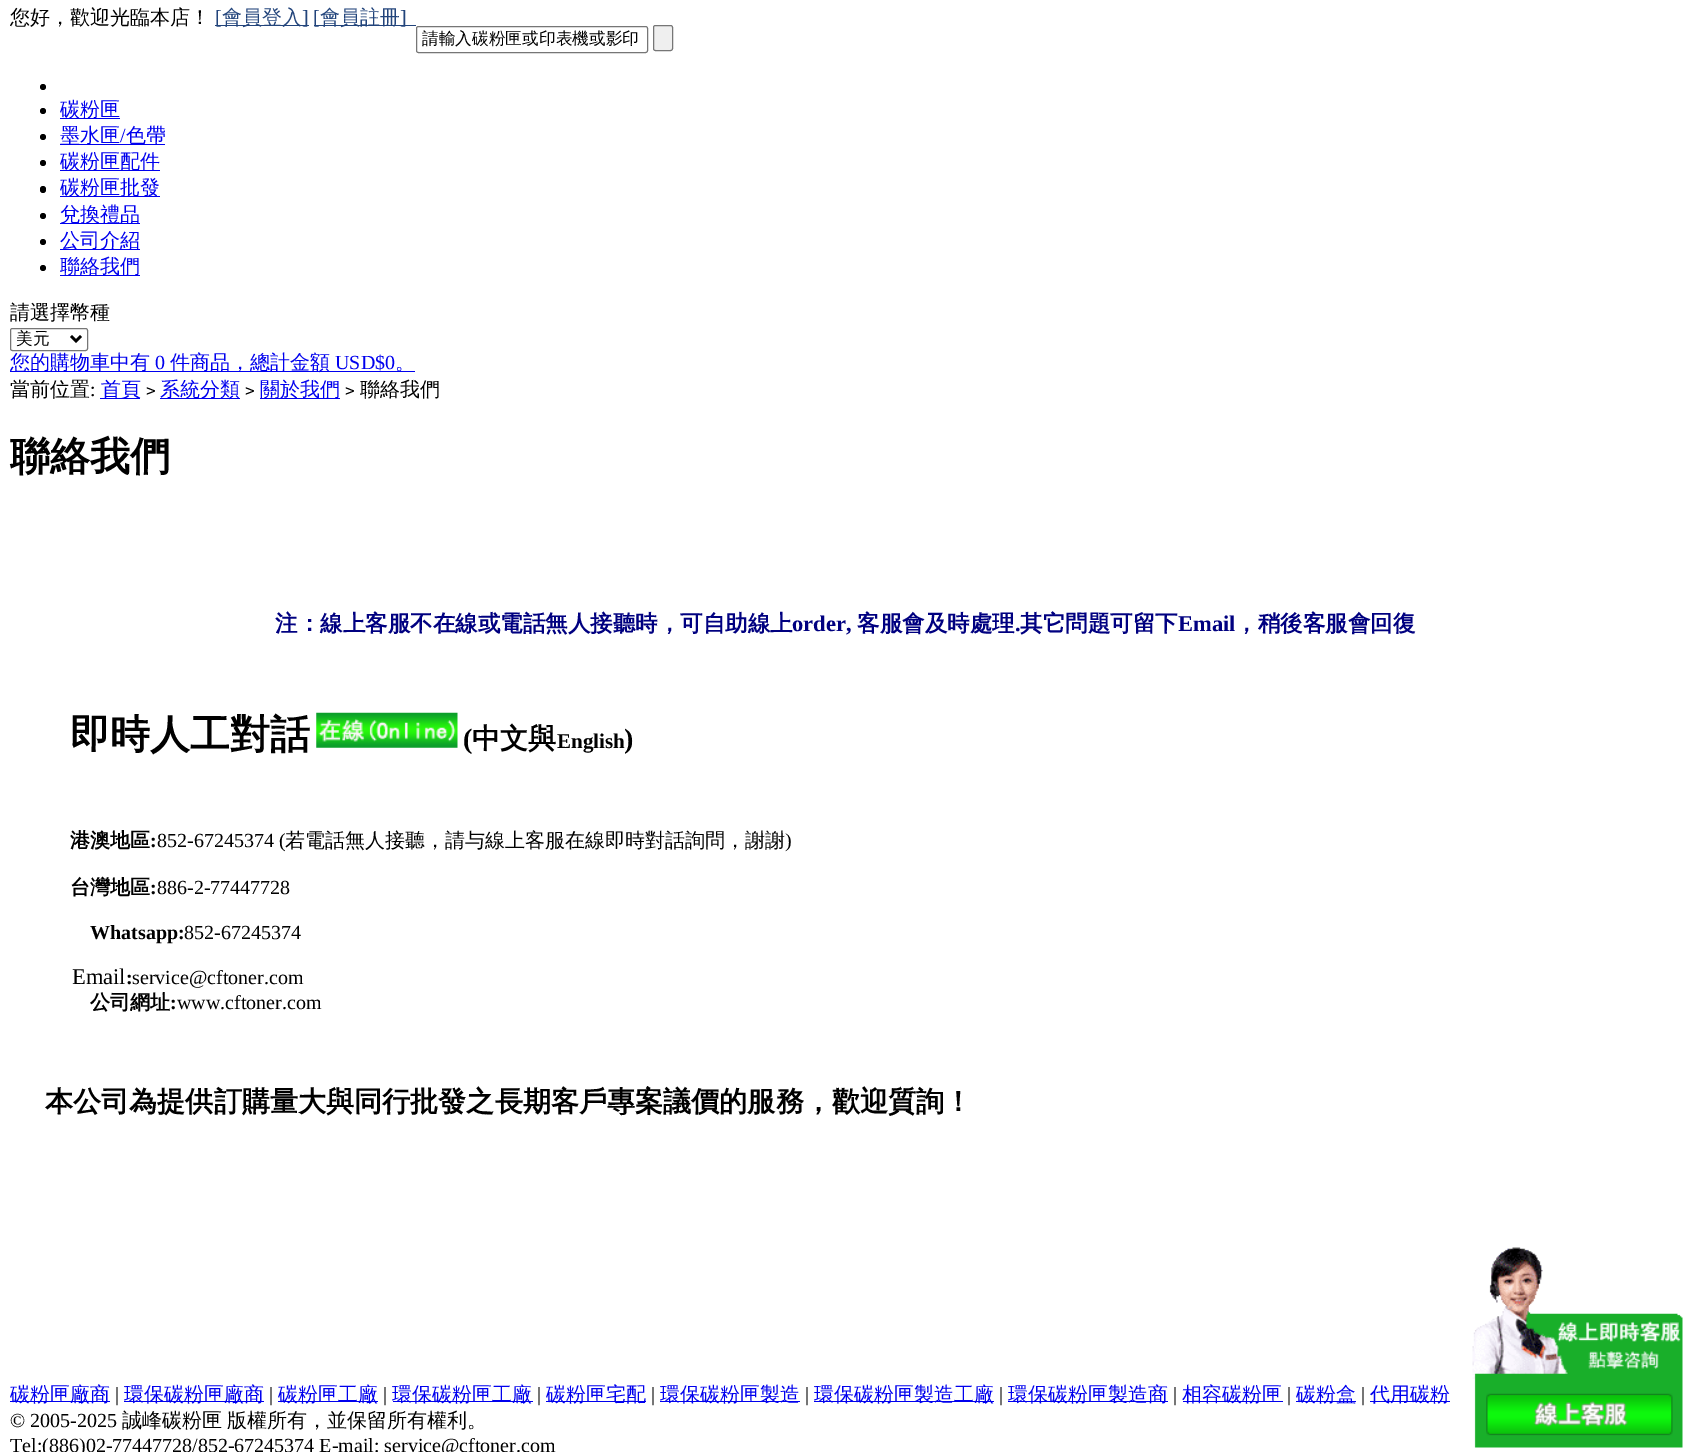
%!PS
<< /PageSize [1689 1452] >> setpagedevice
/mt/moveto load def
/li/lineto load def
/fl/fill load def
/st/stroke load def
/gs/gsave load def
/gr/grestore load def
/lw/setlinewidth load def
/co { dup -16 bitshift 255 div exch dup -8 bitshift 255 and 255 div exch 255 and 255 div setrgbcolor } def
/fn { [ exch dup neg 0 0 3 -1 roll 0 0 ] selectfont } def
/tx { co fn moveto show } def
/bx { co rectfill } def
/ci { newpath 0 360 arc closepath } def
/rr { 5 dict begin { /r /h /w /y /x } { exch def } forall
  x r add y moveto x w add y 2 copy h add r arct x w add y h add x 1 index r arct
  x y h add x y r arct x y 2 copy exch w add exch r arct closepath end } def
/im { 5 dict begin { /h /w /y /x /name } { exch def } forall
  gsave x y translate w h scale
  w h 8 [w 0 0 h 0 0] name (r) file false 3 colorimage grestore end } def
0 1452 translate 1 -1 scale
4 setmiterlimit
0 0 1689 1452 16#FFFFFF bx
215 25 94 1 16#22447B bx
314 25 102 1 16#22447B bx
16#767676 co
416.5 26.5 231 26 2 rr st
16#EFEFEF co
653.5 25.5 19 25 2 rr gs fl gr
16#767676 co
st
16#000000 co
43 87 3 ci fl
43 111 3 ci fl
60 118 60 1 16#0000EE bx
16#000000 co
43 137 3 ci fl
60 144 105 1 16#0000EE bx
16#000000 co
43 163 3 ci fl
60 170 100 1 16#0000EE bx
16#000000 co
40 186 6 7 3 rr fl
60 196 100 1 16#0000EE bx
16#000000 co
43 216 3 ci fl
60 223 80 1 16#0000EE bx
16#000000 co
43 242 3 ci fl
60 249 80 1 16#0000EE bx
16#000000 co
43 268 3 ci fl
60 275 80 1 16#0000EE bx
16#767676 co
10.5 328.5 77 22 2 rr st
16#000000 co
2.5 lw
71 336 mt 76 341 li 81 336 li st
10 371 405 1 16#0000EE bx
100 398 40 1 16#0000EE bx
160 398 80 1 16#0000EE bx
260 398 80 1 16#0000EE bx
(media/1.raw) 316 712 142 36 im
10 1401 100 1 16#0000EE bx
124 1401 140 1 16#0000EE bx
278 1401 100 1 16#0000EE bx
393 1401 140 1 16#0000EE bx
546 1401 100 1 16#0000EE bx
660 1401 140 1 16#0000EE bx
814 1401 180 1 16#0000EE bx
1008 1401 160 1 16#0000EE bx
1183 1401 100 1 16#0000EE bx
1296 1401 60 1 16#0000EE bx
1370 1401 80 1 16#0000EE bx
(media/2.raw) 1472 1247 211 201 im
(您好，歡迎光臨本店！) 10 24 /WenQuanYiZenHei-Medium 20 16#000000 tx
([) 215 24 /LiberationSerif-Regular 20 16#22447B tx
(會員登入) 222 24 /WenQuanYiZenHei-Medium 20 16#22447B tx
(]) 302 24 /LiberationSerif-Regular 20 16#22447B tx
([) 313 24 /LiberationSerif-Regular 20 16#22447B tx
(會員註冊) 320 24 /WenQuanYiZenHei-Medium 20 16#22447B tx
(]) 400 24 /LiberationSerif-Regular 20 16#22447B tx
(請輸入碳粉匣或印表機或影印) 422 44 /WenQuanYiZenHei-Medium 16.7 16#000000 tx
(碳粉匣) 60 116 /WenQuanYiZenHei-Medium 20 16#0000EE tx
(墨水匣) 60 142 /WenQuanYiZenHei-Medium 20 16#0000EE tx
(/) 120 142 /LiberationSerif-Regular 20 16#0000EE tx
(色帶) 126 142 /WenQuanYiZenHei-Medium 20 16#0000EE tx
(碳粉匣配件) 60 168 /WenQuanYiZenHei-Medium 20 16#0000EE tx
(碳粉匣批發) 60 194 /WenQuanYiZenHei-Medium 20 16#0000EE tx
(兌換禮品) 60 221 /WenQuanYiZenHei-Medium 20 16#0000EE tx
(公司介紹) 60 247 /WenQuanYiZenHei-Medium 20 16#0000EE tx
(聯絡我們) 60 273 /WenQuanYiZenHei-Medium 20 16#0000EE tx
(請選擇幣種) 10 319 /WenQuanYiZenHei-Medium 20 16#000000 tx
(美元) 16 344 /WenQuanYiZenHei-Medium 16.7 16#000000 tx
(您的購物車中有) 10 369 /WenQuanYiZenHei-Medium 20 16#0000EE tx
(0) 155 369 /LiberationSerif-Regular 20 16#0000EE tx
(件商品，總計金額) 170 369 /WenQuanYiZenHei-Medium 20 16#0000EE tx
(USD$0) 335 369 /LiberationSerif-Regular 20 16#0000EE tx
(。) 395 369 /WenQuanYiZenHei-Medium 20 16#0000EE tx
(當前位置) 10 396 /WenQuanYiZenHei-Medium 20 16#000000 tx
(:) 90 396 /LiberationSerif-Regular 20 16#000000 tx
(首頁) 101 396 /WenQuanYiZenHei-Medium 20 16#0000EE tx
(>) 146 396 /DejaVuSansMono-Regular 16 16#000000 tx
(系統分類) 160 396 /WenQuanYiZenHei-Medium 20 16#0000EE tx
(>) 245 396 /DejaVuSansMono-Regular 16 16#000000 tx
(關於我們) 260 396 /WenQuanYiZenHei-Medium 20 16#0000EE tx
(>) 345 396 /DejaVuSansMono-Regular 16 16#000000 tx
(聯絡我們) 360 396 /WenQuanYiZenHei-Medium 20 16#000000 tx
(聯絡我們) 10 470 /WenQuanYiZenHei-Bold 40 16#000000 tx
(注：線上客服不在線或電話無人接聽時，可自助線上) 275 631 /WenQuanYiZenHei-Bold 22.5 16#000080 tx
(order,) 792 631 /LiberationSerif-Bold 22.5 16#000080 tx
(客服會及時處理) 857 631 /WenQuanYiZenHei-Bold 22.5 16#000080 tx
(.) 1015 631 /LiberationSerif-Bold 22.5 16#000080 tx
(其它問題可留下) 1020 631 /WenQuanYiZenHei-Bold 22.5 16#000080 tx
(Email) 1178 631 /LiberationSerif-Bold 22.5 16#000080 tx
(，稍後客服會回復) 1235 631 /WenQuanYiZenHei-Bold 22.5 16#000080 tx
(即時人工對話) 70 748 /WenQuanYiZenHei-Bold 40 16#000000 tx
(\() 463 748 /LiberationSerif-Bold 28.1 16#000000 tx
(中文與) 472 748 /WenQuanYiZenHei-Bold 28.1 16#000000 tx
(English) 557 748 /LiberationSerif-Bold 21 16#000000 tx
(\)) 624 748 /LiberationSerif-Bold 28.1 16#000000 tx
(港澳地區) 70 847 /WenQuanYiZenHei-Bold 20 16#000000 tx
(:) 150 847 /LiberationSerif-Bold 20 16#000000 tx
(852-67245374 \() 157 847 /LiberationSerif-Regular 20 16#000000 tx
(若電話無人接聽，請与線上客服在線即時對話詢問，謝謝) 285 847 /WenQuanYiZenHei-Medium 20 16#000000 tx
(\)) 785 847 /LiberationSerif-Regular 20 16#000000 tx
(台灣地區) 70 894 /WenQuanYiZenHei-Bold 20 16#000000 tx
(:) 150 894 /LiberationSerif-Bold 20 16#000000 tx
(886-2-77447728) 157 894 /LiberationSerif-Regular 20 16#000000 tx
(Whatsapp:) 90 939 /LiberationSerif-Bold 20 16#000000 tx
(852-67245374) 184 939 /LiberationSerif-Regular 20 16#000000 tx
(Email) 72 984 /LiberationSerif-Regular 22.5 16#000000 tx
(:) 126 984 /LiberationSerif-Bold 20 16#000000 tx
(service@cftoner.com) 132 984 /LiberationSerif-Regular 20 16#000000 tx
(公司網址) 90 1009 /WenQuanYiZenHei-Bold 20 16#000000 tx
(:) 170 1009 /LiberationSerif-Bold 20 16#000000 tx
(www.cftoner.com) 177 1009 /LiberationSerif-Regular 20 16#000000 tx
(本公司為提供訂購量大與同行批發之長期客戶專案議價的服務，歡迎質詢！) 45 1111 /WenQuanYiZenHei-Bold 28.1 16#000000 tx
(碳粉匣廠商) 10 1401 /WenQuanYiZenHei-Medium 20 16#0000EE tx
(|) 115 1401 /LiberationSerif-Regular 20 16#000000 tx
(環保碳粉匣廠商) 124 1401 /WenQuanYiZenHei-Medium 20 16#0000EE tx
(|) 269 1401 /LiberationSerif-Regular 20 16#000000 tx
(碳粉匣工廠) 278 1401 /WenQuanYiZenHei-Medium 20 16#0000EE tx
(|) 383 1401 /LiberationSerif-Regular 20 16#000000 tx
(環保碳粉匣工廠) 392 1401 /WenQuanYiZenHei-Medium 20 16#0000EE tx
(|) 537 1401 /LiberationSerif-Regular 20 16#000000 tx
(碳粉匣宅配) 546 1401 /WenQuanYiZenHei-Medium 20 16#0000EE tx
(|) 651 1401 /LiberationSerif-Regular 20 16#000000 tx
(環保碳粉匣製造) 660 1401 /WenQuanYiZenHei-Medium 20 16#0000EE tx
(|) 805 1401 /LiberationSerif-Regular 20 16#000000 tx
(環保碳粉匣製造工廠) 814 1401 /WenQuanYiZenHei-Medium 20 16#0000EE tx
(|) 999 1401 /LiberationSerif-Regular 20 16#000000 tx
(環保碳粉匣製造商) 1008 1401 /WenQuanYiZenHei-Medium 20 16#0000EE tx
(|) 1173 1401 /LiberationSerif-Regular 20 16#000000 tx
(相容碳粉匣) 1182 1401 /WenQuanYiZenHei-Medium 20 16#0000EE tx
(|) 1287 1401 /LiberationSerif-Regular 20 16#000000 tx
(碳粉盒) 1296 1401 /WenQuanYiZenHei-Medium 20 16#0000EE tx
(|) 1361 1401 /LiberationSerif-Regular 20 16#000000 tx
(代用碳粉) 1370 1401 /WenQuanYiZenHei-Medium 20 16#0000EE tx
(© 2005-2025) 10 1427 /LiberationSerif-Regular 20 16#000000 tx
(誠峰碳粉匣) 122 1427 /WenQuanYiZenHei-Medium 20 16#000000 tx
(版權所有，並保留所有權利。) 227 1427 /WenQuanYiZenHei-Medium 20 16#000000 tx
(Tel:\(886\)02-77447728/852-67245374 E-mail: service@cftoner.com) 10 1452 /LiberationSerif-Regular 20 16#000000 tx
showpage
